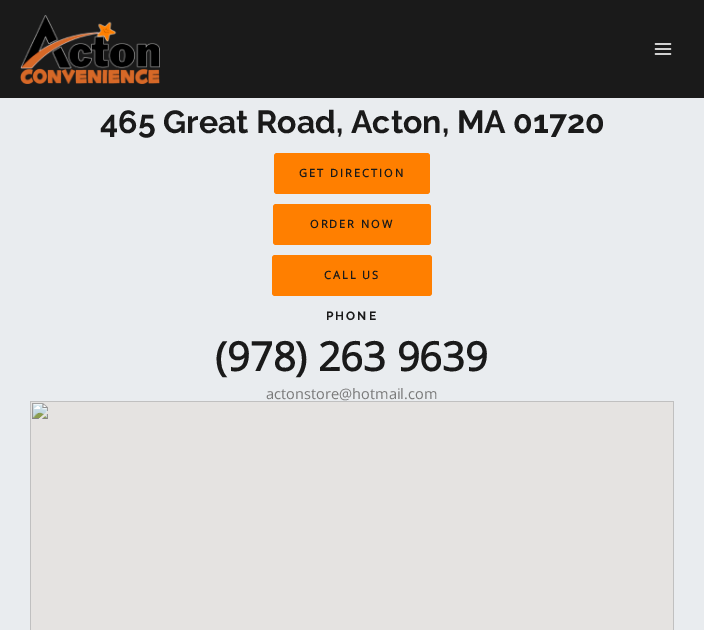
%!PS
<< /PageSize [704 630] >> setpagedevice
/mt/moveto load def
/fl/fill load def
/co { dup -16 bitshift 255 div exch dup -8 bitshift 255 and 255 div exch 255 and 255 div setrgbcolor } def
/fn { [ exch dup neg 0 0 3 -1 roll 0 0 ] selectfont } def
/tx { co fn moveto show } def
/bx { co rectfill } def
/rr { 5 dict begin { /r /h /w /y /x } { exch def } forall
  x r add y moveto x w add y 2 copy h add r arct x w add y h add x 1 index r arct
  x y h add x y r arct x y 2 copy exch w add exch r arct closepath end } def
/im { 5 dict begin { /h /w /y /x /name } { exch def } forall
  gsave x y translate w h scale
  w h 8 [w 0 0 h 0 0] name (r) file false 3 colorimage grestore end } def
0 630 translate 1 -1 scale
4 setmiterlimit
0 0 704 630 16#E9ECEF bx
0 0 704 98 16#1A1A1A bx
(media/1.raw) 20 15 140 69 im
(media/2.raw) 654 43 18 12 im
16#FF7F00 co
274 153 156 41 3 rr fl
273 204 158 41 3 rr fl
272 255 160 41 3 rr fl
(media/3.raw) 30 401 644 229 im
(465 Great Road, Acton, MA 01720) 100 133 /Raleway-Thin 32 16#1A1A1A tx
/OpenSans-Bold 11 fn
299 177 mt 2 0 (GET DIRECTION) ashow
310 228 mt 2 0 (ORDER NOW) ashow
324 279 mt 2 0 (CALL US) ashow
/Raleway-Thin 12 fn
326 320 mt 2 0 (PHONE) ashow
(\(978\) 263 9639) 215 371 /OpenSans-Bold 40 16#1A1A1A tx
(actonstore@hotmail.com) 266 399 /OpenSans-Regular 14.6 16#7A7A7A tx
showpage
